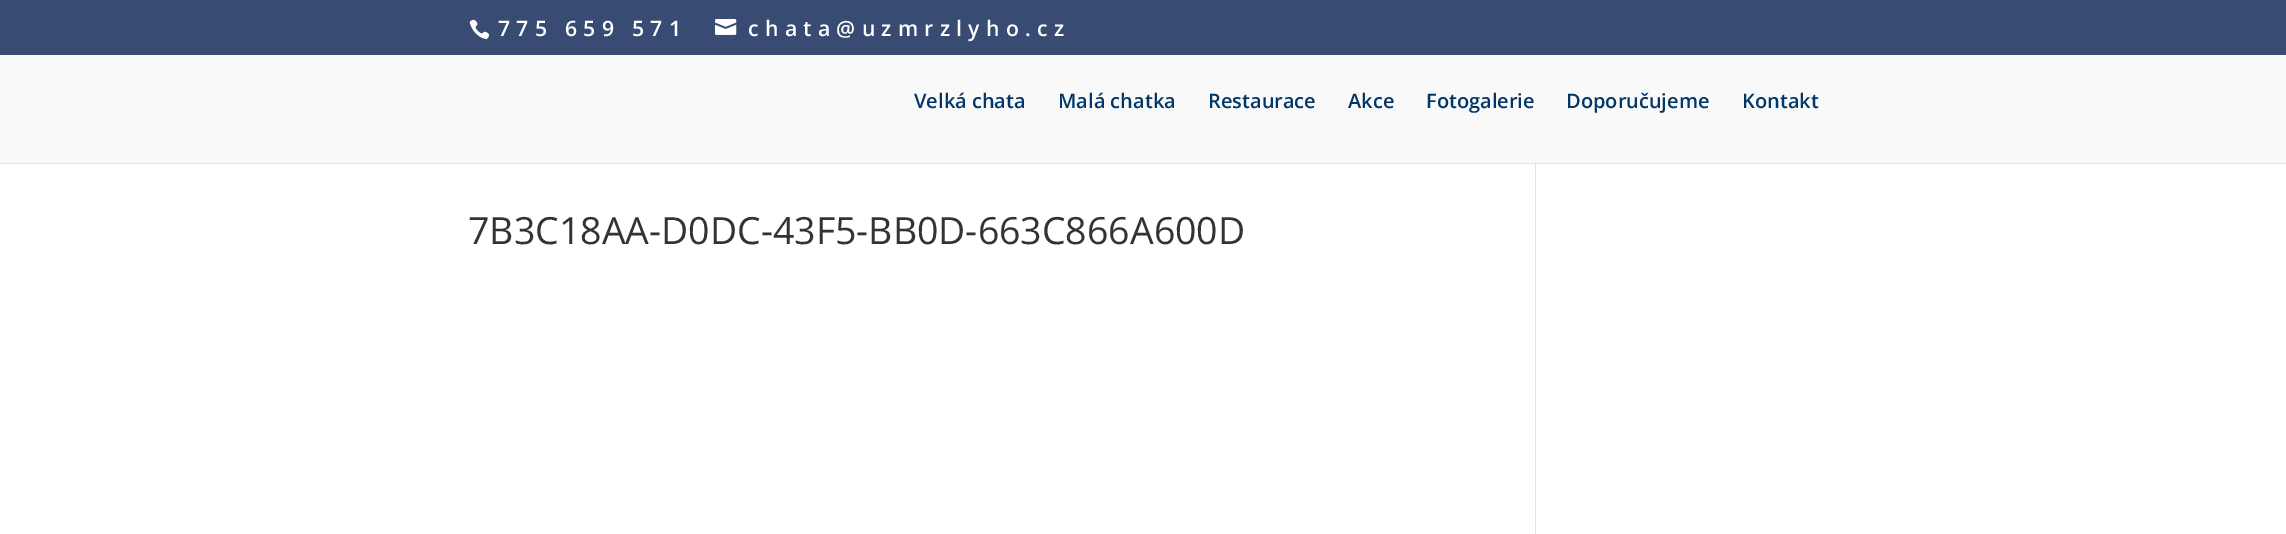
%!PS
<< /PageSize [2286 534] >> setpagedevice
/mt/moveto load def
/co { dup -16 bitshift 255 div exch dup -8 bitshift 255 and 255 div exch 255 and 255 div setrgbcolor } def
/fn { [ exch dup neg 0 0 3 -1 roll 0 0 ] selectfont } def
/tx { co fn moveto show } def
/bx { co rectfill } def
/im { 5 dict begin { /h /w /y /x /name } { exch def } forall
  gsave x y translate w h scale
  w h 8 [w 0 0 h 0 0] name (r) file false 3 colorimage grestore end } def
0 534 translate 1 -1 scale
4 setmiterlimit
0 0 2286 534 16#FFFFFF bx
0 163 2286 1 16#E6E6E6 bx
0 0 2286 55 16#384B72 bx
(media/1.raw) 469 19 21 21 im
(media/2.raw) 715 19 22 16 im
1535 162 1 2 16#CBCBCB bx
0 55 2286 108 16#F9F9F9 bx
1535 164 1 370 16#E2E2E2 bx
/OpenSans-SemiBold 21.25 fn
16#FFFFFF co
498 36 mt 6.25 0 (775 659 571) ashow
748 36 mt 6.25 0 (chata@uzmrzlyho.cz) ashow
(Velká chata) 914 108 /OpenSans-SemiBold 20 16#003668 tx
(Malá chatka) 1058 108 /OpenSans-SemiBold 20 16#003668 tx
(Restaurace) 1208 108 /OpenSans-SemiBold 20 16#003668 tx
(Akce) 1348 108 /OpenSans-SemiBold 20 16#003668 tx
(Fotogalerie) 1426 108 /OpenSans-SemiBold 20 16#003668 tx
(Doporučujeme) 1566 108 /OpenSans-SemiBold 20 16#003668 tx
(Kontakt) 1742 108 /OpenSans-SemiBold 20 16#003668 tx
(7B3C18AA-D0DC-43F5-BB0D-663C866A600D) 468 244 /OpenSans-Regular 37.5 16#333333 tx
showpage
